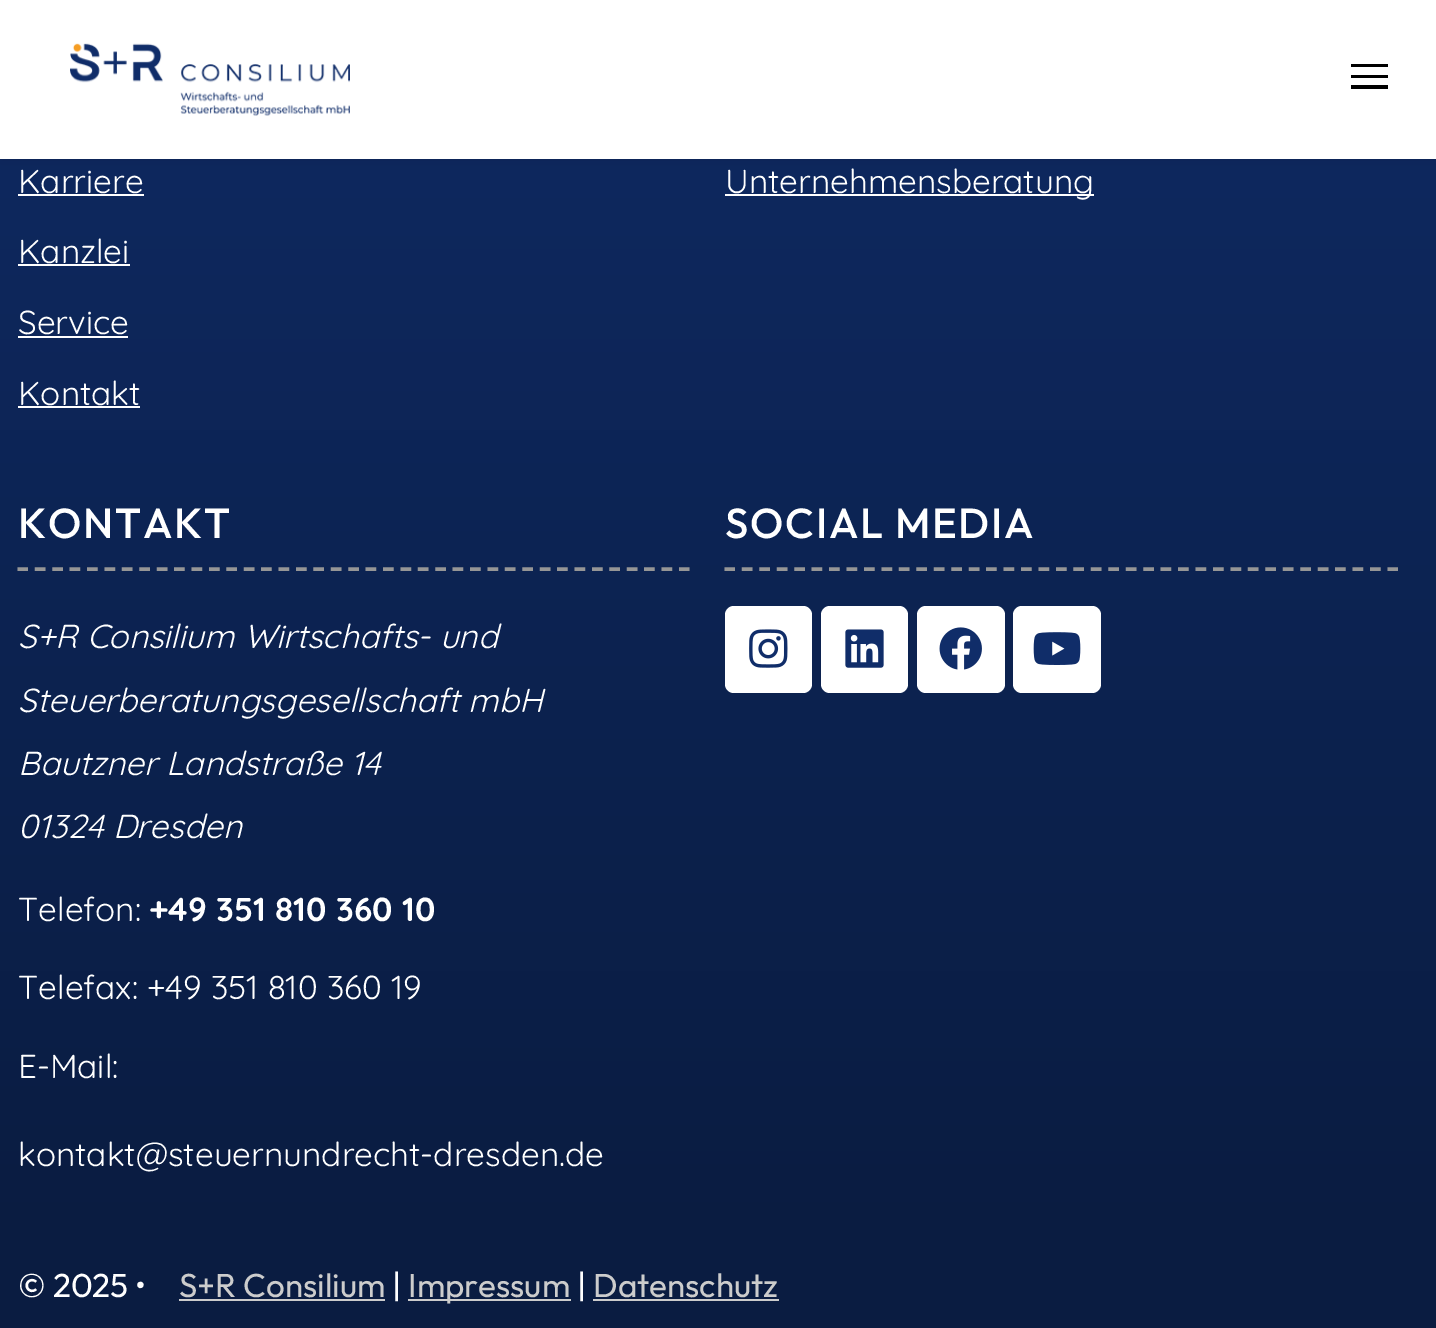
%!PS
<< /PageSize [1436 1328] /PageUsesTransparency true >> setpagedevice
/mt/moveto load def
/li/lineto load def
/cp/closepath load def
/fl/fill load def
/st/stroke load def
/gs/gsave load def
/gr/grestore load def
/lw/setlinewidth load def
/co { dup -16 bitshift 255 div exch dup -8 bitshift 255 and 255 div exch 255 and 255 div setrgbcolor } def
/fn { [ exch dup neg 0 0 3 -1 roll 0 0 ] selectfont } def
/tx { co fn moveto show } def
/bx { co rectfill } def
/al { dup .setfillconstantalpha .setstrokeconstantalpha } def
/rr { 5 dict begin { /r /h /w /y /x } { exch def } forall
  x r add y moveto x w add y 2 copy h add r arct x w add y h add x 1 index r arct
  x y h add x y r arct x y 2 copy exch w add exch r arct closepath end } def
/sh { 12 dict begin { /a /b /q /h /w /y /x } { exch def } forall gsave /was 0 def
  9 -2 -9 { dup b mul 4 div /e exch def 1 sub .425 mul 2.718 exch exp 1 add a .99 .min exch div /now exch def
    1 1 now sub 1 was sub div sub al /was now def
    w h .min e 2 mul add 0 gt { x e sub y e sub w e 2 mul add h e 2 mul add
      q e add b .6 mul add w h .min 2 div e add .min 0 .max rr fill } if } for grestore end } def
/im { 5 dict begin { /h /w /y /x /name } { exch def } forall
  gsave x y translate w h scale
  w h 8 [w 0 0 h 0 0] name (r) file false 3 colorimage grestore end } def
0 .pushpdf14devicefilter
0 1328 translate 1 -1 scale
4 setmiterlimit
0 0 1436 1328 16#FFFFFF bx
gs 0 159 mt 1436 159 li 1436 1241 li 0 1241 li cp clip newpath
<< /ShadingType 2 /ColorSpace /DeviceRGB /Coords [718 -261 718 1241] /Extend [true true] /Function << /FunctionType 2 /Domain [0 1] /C0 [.063 .176 .412] /C1 [.039 .11 .255] /N 1 >> >> shfill gr
16#000000 co
0 0 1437 159 0 9 .1 sh
0 0 1436 159 16#FFFFFF bx
(media/1.raw) 70 43 280 73 im
1351 64 37 3 16#000000 bx
1351 75 37 3 16#000000 bx
1351 85 37 4 16#000000 bx
18 194 126 2 16#FFFFFF bx
18 264 112 2 16#FFFFFF bx
18 336 110 2 16#FFFFFF bx
18 406 122 2 16#FFFFFF bx
725 194 369 2 16#FFFFFF bx
16#969696 co
3.5 lw
[10.5 6.91] 0 setdash
17.5 569 mt 689.5 569 li st
[10.5 6.95] 0 setdash
724.5 569 mt 1398 569 li st
16#FFFFFF co
725 606 87 87 9 rr fl
(media/2.raw) 749 629 39 39 im
821 606 87 87 9 rr fl
(media/3.raw) 845 629 39 39 im
917 606 88 87 9 rr fl
(media/4.raw) 939 627 43 43 im
1013 606 88 87 9 rr fl
(media/5.raw) 1033 632 48 33 im
0 1241 1436 87 16#0A1C41 bx
179 1299 206 2 16#CCCCCC bx
408 1299 163 2 16#CCCCCC bx
593 1299 186 2 16#CCCCCC bx
(Karriere) 18 193 /Quicksand-Regular 33.25 16#FFFFFF tx
(Kanzlei) 18 263 /Quicksand-Regular 33.25 16#FFFFFF tx
(Service) 18 334 /Quicksand-Regular 33.25 16#FFFFFF tx
(Kontakt) 18 405 /Quicksand-Regular 33.25 16#FFFFFF tx
(Unternehmensberatung) 725 193 /Quicksand-Regular 33.25 16#FFFFFF tx
/Outfit-Medium 42 fn
18 538 mt 1.75 0 (KONTAKT) ashow
(S+R Consilium Wirtschafts- und) 18 648 /Quicksand-Italic 33.25 16#FFFFFF tx
(Steuerberatungsgesellschaft mbH) 18 712 /Quicksand-Italic 33.25 16#FFFFFF tx
(Bautzner Landstraße 14) 18 775 /Quicksand-Italic 33.25 16#FFFFFF tx
(01324 Dresden) 18 838 /Quicksand-Italic 33.25 16#FFFFFF tx
(Telefon:) 18 921 /Quicksand-Regular 33.25 16#FFFFFF tx
(+49 351 810 360 10) 149 921 /Quicksand-Bold 33.25 16#FFFFFF tx
(Telefax: +49 351 810 360 19) 18 999 /Quicksand-Regular 33.25 16#FFFFFF tx
(E-Mail:) 18 1078 /Quicksand-Regular 33.25 16#FFFFFF tx
(kontakt@steuernundrecht-dresden.de) 18 1166 /Quicksand-Regular 33.25 16#FFFFFF tx
/Outfit-Medium 42 fn
725 538 mt 1.75 0 (SOCIAL MEDIA) ashow
(© 2025 •) 18 1297 /Outfit-Regular 33.25 16#FFFFFF tx
(S+R Consilium) 179 1297 /Outfit-Regular 33.25 16#CCCCCC tx
(|) 392 1297 /Outfit-Regular 33.25 16#FFFFFF tx
(Impressum) 408 1297 /Outfit-Regular 33.25 16#CCCCCC tx
(|) 577 1297 /Outfit-Regular 33.25 16#FFFFFF tx
(Datenschutz) 593 1297 /Outfit-Regular 33.25 16#CCCCCC tx
.poppdf14devicefilter showpage
